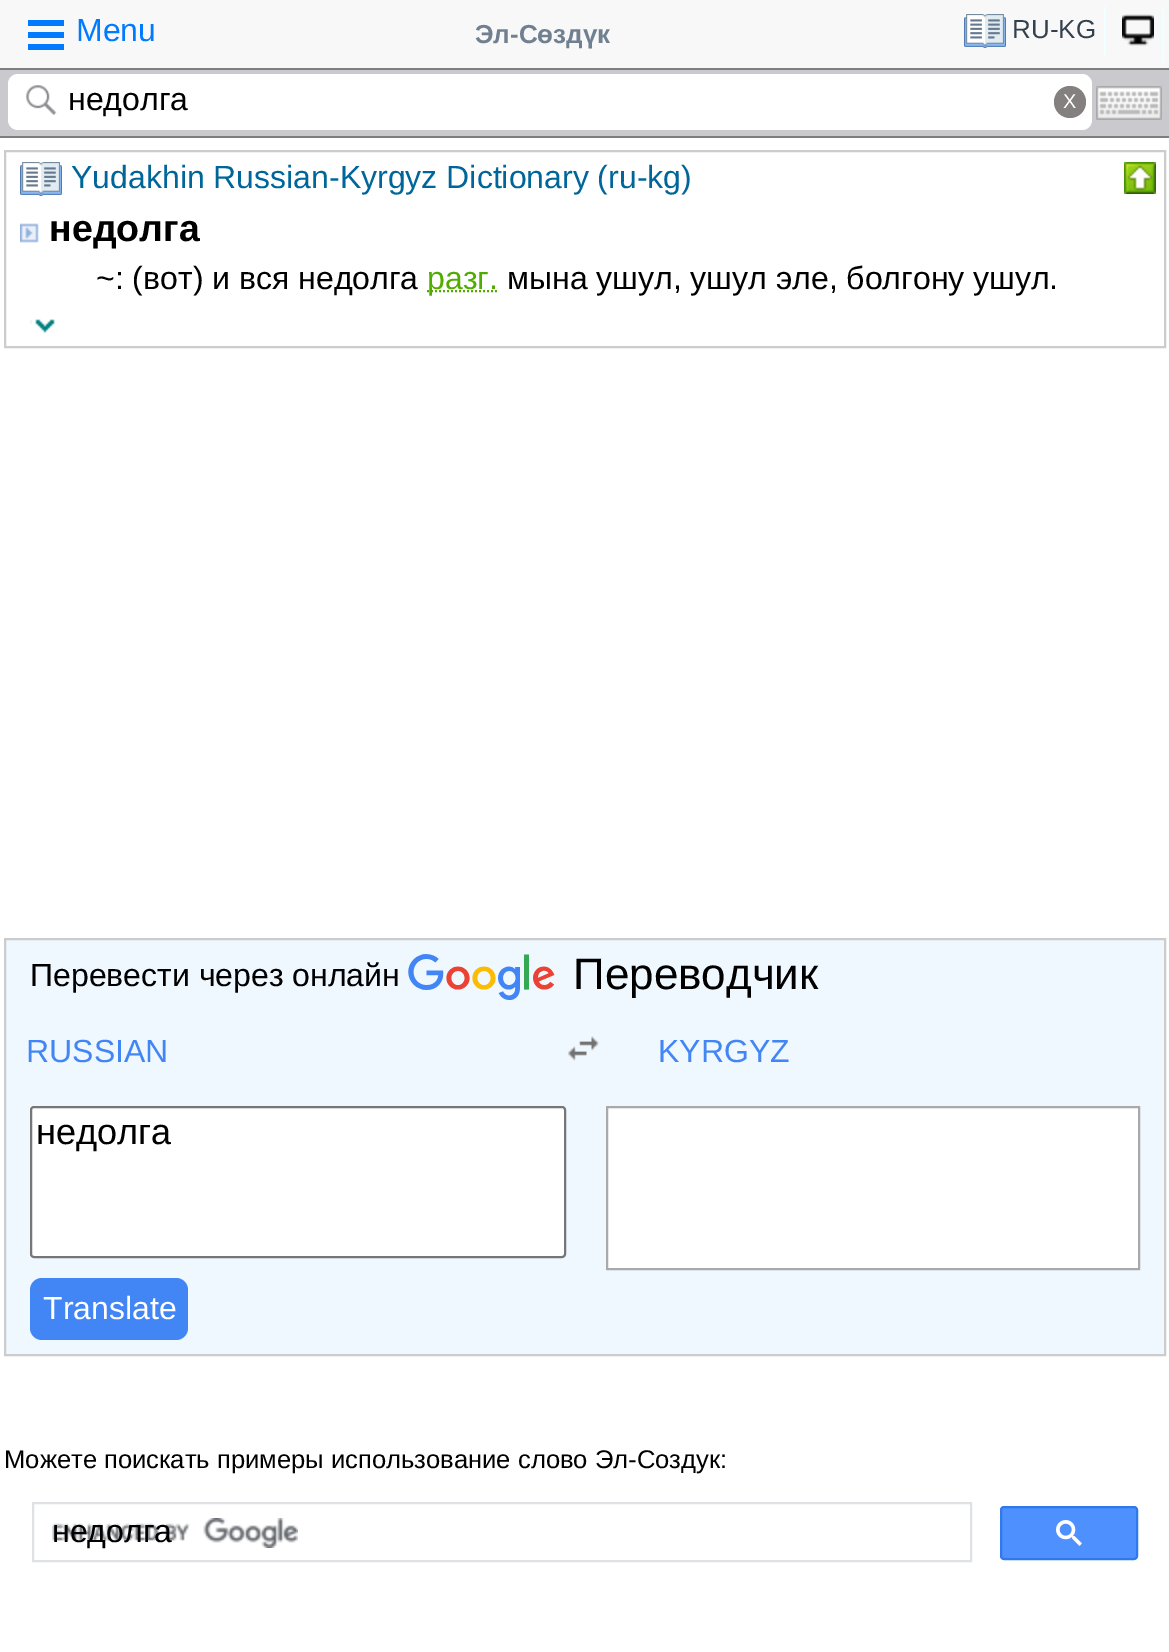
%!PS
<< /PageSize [1169 1652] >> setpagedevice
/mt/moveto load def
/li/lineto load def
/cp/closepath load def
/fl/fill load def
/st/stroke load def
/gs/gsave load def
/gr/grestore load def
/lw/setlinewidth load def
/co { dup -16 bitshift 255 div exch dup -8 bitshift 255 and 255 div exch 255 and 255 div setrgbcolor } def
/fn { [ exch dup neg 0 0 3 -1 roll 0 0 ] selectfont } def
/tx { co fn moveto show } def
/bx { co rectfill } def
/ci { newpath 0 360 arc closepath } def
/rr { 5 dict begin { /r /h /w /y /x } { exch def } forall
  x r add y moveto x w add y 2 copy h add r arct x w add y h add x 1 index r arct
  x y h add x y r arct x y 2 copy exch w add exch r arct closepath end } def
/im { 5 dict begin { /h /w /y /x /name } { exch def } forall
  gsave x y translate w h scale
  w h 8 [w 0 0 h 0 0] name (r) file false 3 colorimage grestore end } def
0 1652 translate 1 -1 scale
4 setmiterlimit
0 0 1169 1652 16#FFFFFF bx
0 0 1169 68 16#F8F8F8 bx
0 68 1169 2 16#7E7E7E bx
28 20 36 6 16#007BFF bx
28 32 36 6 16#007BFF bx
28 44 36 6 16#007BFF bx
1104 6 2 50 16#F0FFFF bx
(media/1.raw) 964 14 42 34 im
1162 6 2 56 16#F0FFFF bx
(media/2.raw) 1122 14 32 32 im
0 70 1169 66 16#C9C9CE bx
0 136 1169 2 16#7E7E7E bx
16#FFFFFF co
8 74 1084 56 10 rr fl
(media/3.raw) 26 85 31 30 im
16#848080 co
1070 102 16 ci fl
(media/4.raw) 1096 86 66 34 im
16#CCCCCC co
2 lw
5 151 1160 196 rectstroke
(media/5.raw) 20 162 42 34 im
(media/6.raw) 1124 162 32 32 im
(media/7.raw) 20 223 19 20 im
16#52AB00 co
[2 2] 0 setdash
427 291 mt 498 291 li st
(media/8.raw) 30 319 25 14 im
16#F0F8FF co
5 939 mt 1165 939 li 1165 1355 li 5 1355 li cp gs fl gr
16#CCCCCC co
[] 0 setdash
st
(media/9.raw) 408 954 147 46 im
(media/10.raw) 568 1036 31 25 im
16#FFFFFF co
31 1107 534 150 3 rr gs fl gr
16#767676 co
st
16#FFFFFF co
607 1107 mt 1139 1107 li 1139 1269 li 607 1269 li cp gs fl gr
16#A9A9A9 co
st
16#4285F4 co
30 1278 158 62 12 rr fl
16#DFE1E5 co
33 1503 938 58 rectstroke
(media/11.raw) 52 1518 246 30 im
16#4D90FE co
1001 1507 136 52 3 rr gs fl gr
16#3079ED co
st
(media/12.raw) 1056 1520 26 26 im
(Menu) 76 41 /LiberationSans-Regular 32 16#007BFF tx
(Эл-Сөздүк) 475 43 /LiberationSans-Bold 26 16#708090 tx
(RU-KG) 1012 38 /LiberationSans-Regular 26 16#33404D tx
(недолга) 68 110 /LiberationSans-Regular 32 16#000000 tx
(X) 1063 108 /LiberationSans-Regular 20 16#FFFFFF tx
(Yudakhin Russian-Kyrgyz Dictionary \(ru-kg\)) 71 188 /LiberationSans-Regular 32 16#006699 tx
(недолга) 49 241 /LiberationSans-Bold 37.5 16#000000 tx
(~: \(вот\) и вся недолга) 96 289 /LiberationSans-Regular 32 16#000000 tx
(разг.) 427 289 /LiberationSans-Regular 32 16#52AB00 tx
(мына ушул, ушул эле, болгону ушул.) 507 289 /LiberationSans-Regular 32 16#000000 tx
(Перевести через онлайн) 30 986 /LiberationSans-Regular 32 16#000000 tx
(Переводчик) 573 989 /LiberationSans-Regular 44 16#000000 tx
(RUSSIAN) 26 1062 /LiberationSans-Regular 32 16#4285F4 tx
(KYRGYZ) 658 1062 /LiberationSans-Regular 32 16#4285F4 tx
(недолга) 36 1144 /LiberationSans-Regular 36 16#000000 tx
(Translate) 43 1319 /LiberationSans-Regular 32 16#FFFFFF tx
(Можете поискать примеры использование слово Эл-Создук:) 4 1468 /LiberationSans-Regular 25.6 16#000000 tx
(недолга) 52 1542 /LiberationSans-Regular 32 16#000000 tx
showpage
